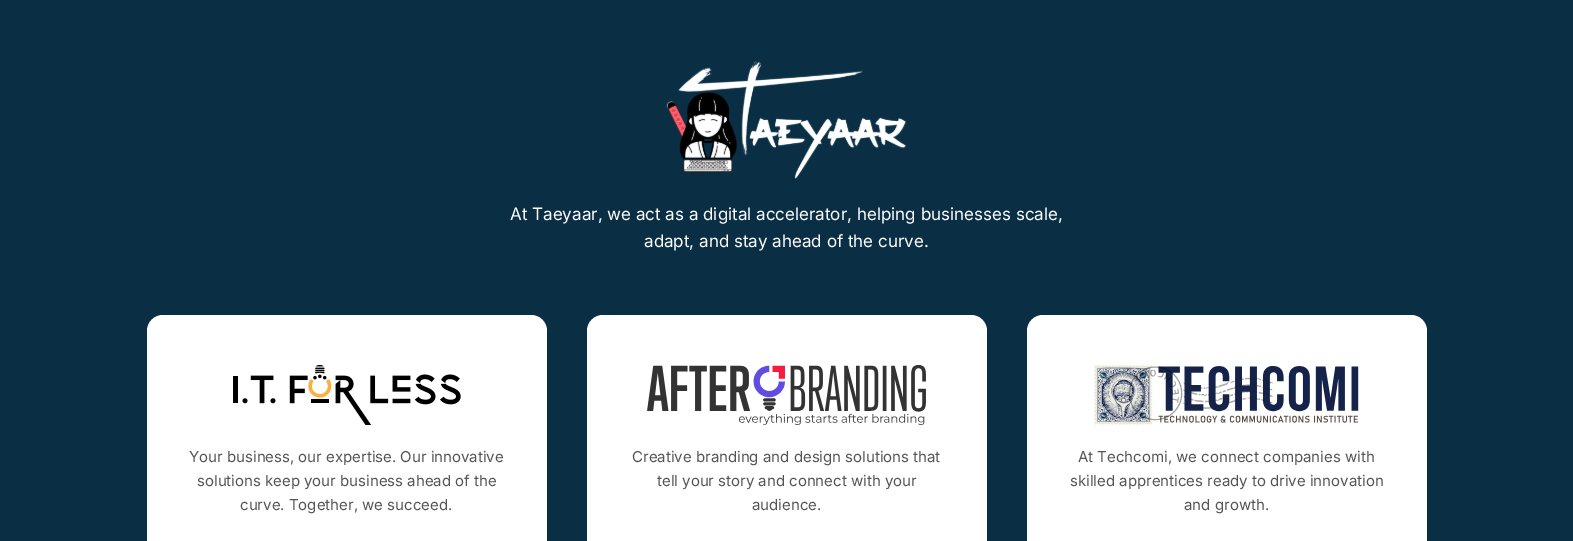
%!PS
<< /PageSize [1573 541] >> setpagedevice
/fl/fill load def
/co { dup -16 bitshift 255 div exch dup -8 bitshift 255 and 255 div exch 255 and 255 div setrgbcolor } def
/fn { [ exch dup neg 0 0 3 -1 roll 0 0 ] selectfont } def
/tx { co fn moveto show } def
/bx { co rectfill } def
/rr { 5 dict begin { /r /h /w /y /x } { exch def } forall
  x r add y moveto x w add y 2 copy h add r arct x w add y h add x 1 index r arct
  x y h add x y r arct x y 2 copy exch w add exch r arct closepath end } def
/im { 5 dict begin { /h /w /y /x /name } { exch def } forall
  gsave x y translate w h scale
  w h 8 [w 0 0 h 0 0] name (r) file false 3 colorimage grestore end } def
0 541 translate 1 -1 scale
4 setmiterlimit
0 0 1573 541 16#0A2F44 bx
(media/1.raw) 666 60 240 119 im
16#FFFFFF co
147 315 400 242 16 rr fl
(media/2.raw) 233 365 228 60 im
587 315 400 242 16 rr fl
(media/3.raw) 647 365 279 60 im
1027 315 400 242 16 rr fl
(media/4.raw) 1094 365 265 60 im
(At Taeyaar, we act as a digital accelerator, helping businesses scale,) 510 220 /Inter-Regular 17 16#FFFFFF tx
(adapt, and stay ahead of the curve.) 644 247 /Inter-Regular 17 16#FFFFFF tx
(Your business, our expertise. Our innovative) 189 462 /Inter-Regular 15 16#555555 tx
(solutions keep your business ahead of the) 197 486 /Inter-Regular 15 16#555555 tx
(curve. Together, we succeed.) 240 510 /Inter-Regular 15 16#555555 tx
(Creative branding and design solutions that) 632 462 /Inter-Regular 15 16#555555 tx
(tell your story and connect with your) 657 486 /Inter-Regular 15 16#555555 tx
(audience.) 752 510 /Inter-Regular 15 16#555555 tx
(At Techcomi, we connect companies with) 1078 462 /Inter-Regular 15 16#555555 tx
(skilled apprentices ready to drive innovation) 1070 486 /Inter-Regular 15 16#555555 tx
(and growth.) 1184 510 /Inter-Regular 15 16#555555 tx
showpage
